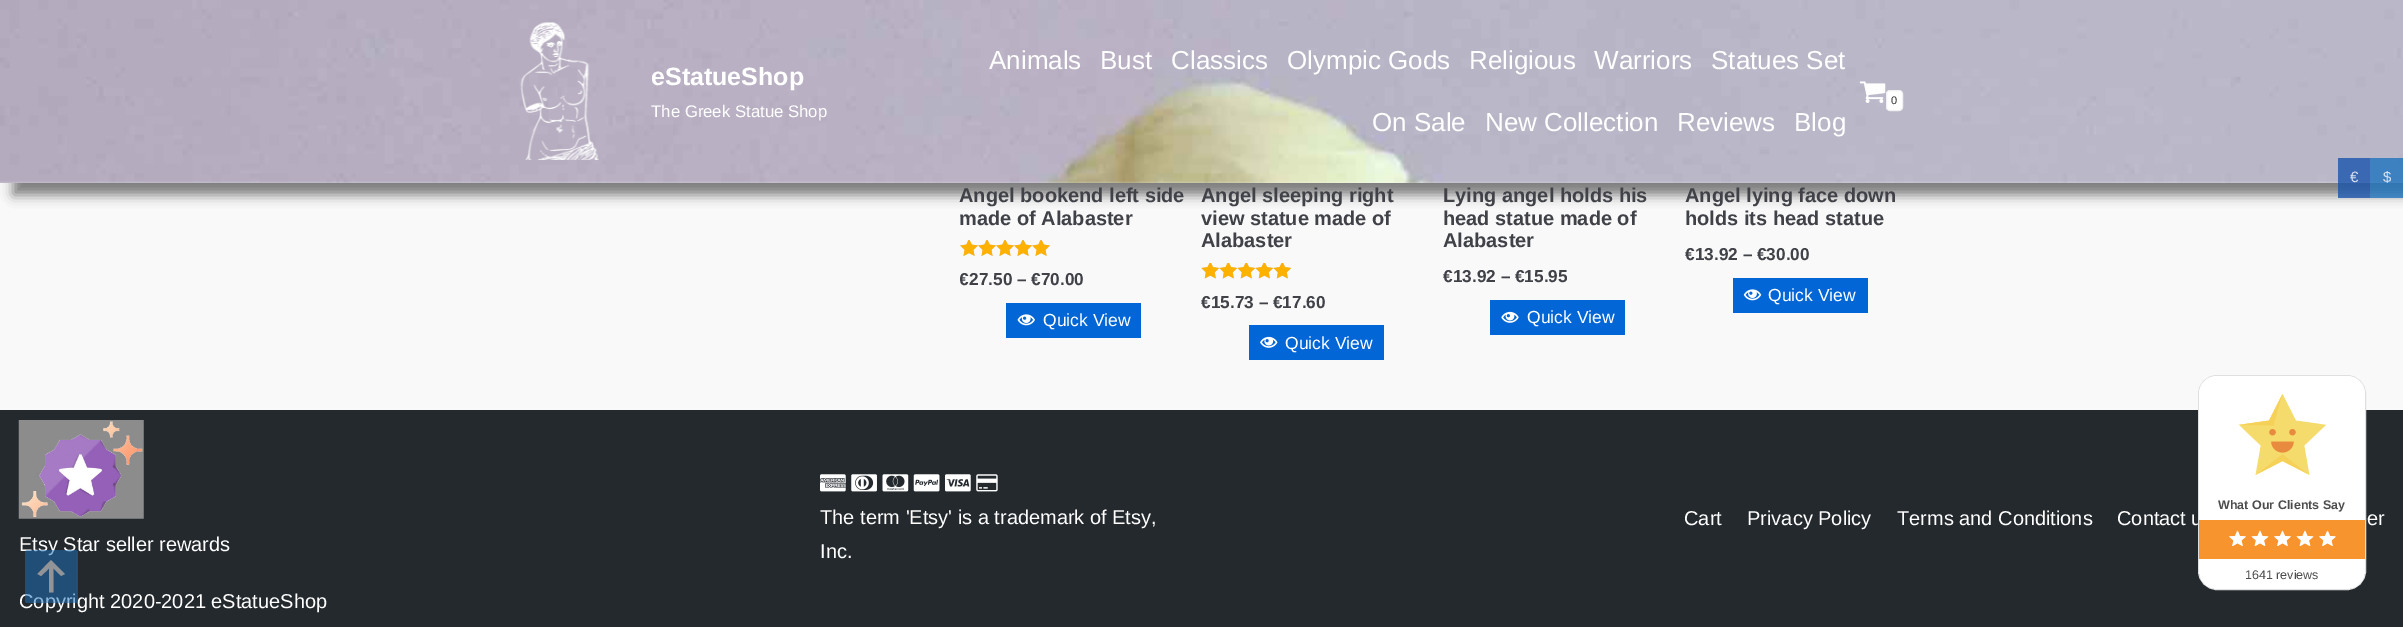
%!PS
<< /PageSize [2403 627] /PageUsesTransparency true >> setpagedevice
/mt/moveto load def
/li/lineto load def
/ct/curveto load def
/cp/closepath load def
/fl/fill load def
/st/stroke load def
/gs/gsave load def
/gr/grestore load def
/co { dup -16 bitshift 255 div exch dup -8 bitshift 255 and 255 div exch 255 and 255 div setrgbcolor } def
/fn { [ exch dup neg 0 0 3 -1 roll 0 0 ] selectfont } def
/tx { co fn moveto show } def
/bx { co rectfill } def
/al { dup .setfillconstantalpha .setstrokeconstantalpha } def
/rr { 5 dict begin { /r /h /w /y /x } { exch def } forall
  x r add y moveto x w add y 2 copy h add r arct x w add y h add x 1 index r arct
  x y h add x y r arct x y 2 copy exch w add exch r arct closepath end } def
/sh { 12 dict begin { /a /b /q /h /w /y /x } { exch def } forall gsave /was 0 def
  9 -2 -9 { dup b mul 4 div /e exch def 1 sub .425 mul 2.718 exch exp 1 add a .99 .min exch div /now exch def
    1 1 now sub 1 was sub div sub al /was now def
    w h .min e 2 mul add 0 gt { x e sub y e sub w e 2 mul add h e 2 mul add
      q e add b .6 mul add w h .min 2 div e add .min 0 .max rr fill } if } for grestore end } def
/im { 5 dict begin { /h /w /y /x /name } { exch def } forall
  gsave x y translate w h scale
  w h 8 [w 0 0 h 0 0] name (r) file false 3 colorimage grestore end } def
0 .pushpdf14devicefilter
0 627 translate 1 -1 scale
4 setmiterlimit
0 0 2403 627 16#F9F9F9 bx
16#000000 co
13 13 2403 182 0 6 .5 sh
(media/1.raw) 0 0 2403 183 im
(media/2.raw) 520 22 79 138 im
(media/3.raw) 1859 81 27 22 im
16#FFFFFF co
1886.5 90.5 16 20 3.5 rr gs fl gr
16#F0F0F0 co
st
(media/4.raw) 960 240 90 16 im
(media/5.raw) 960 240 90 16 im
1006 303 135 35 16#0366D6 bx
(media/6.raw) 1017 314 18 12 im
(media/7.raw) 1201 263 90 16 im
(media/8.raw) 1201 263 91 16 im
1249 325 135 35 16#0366D6 bx
(media/9.raw) 1260 336 18 12 im
1490 300 135 35 16#0366D6 bx
(media/10.raw) 1501 311 18 12 im
1733 278 135 35 16#0366D6 bx
(media/11.raw) 1743 289 19 12 im
0 410 2403 217 16#24292E bx
(media/12.raw) 820 474 26 18 im
(media/13.raw) 851 474 26 18 im
(media/14.raw) 882 474 27 18 im
(media/15.raw) 913 474 27 18 im
(media/16.raw) 945 474 26 18 im
(media/17.raw) 976 474 22 18 im
(media/18.raw) 18 420 126 99 im
0.8 al
2338 158 32 40 16#1A54AD bx
2370 158 33 40 16#1E73BE bx
1 al
(eStatueShop) 651 85 /LiberationSans-Bold 25 16#FFFFFF tx
(The Greek Statue Shop) 651 117 /LiberationSans-Regular 16.75 16#FFFFFF tx
(Animals) 989 69 /LiberationSans-Regular 26 16#FFFFFF tx
(Bust) 1100 69 /LiberationSans-Regular 26 16#FFFFFF tx
(Classics) 1171 69 /LiberationSans-Regular 26 16#FFFFFF tx
(Olympic Gods) 1287 69 /LiberationSans-Regular 26 16#FFFFFF tx
(Religious) 1469 69 /LiberationSans-Regular 26 16#FFFFFF tx
(Warriors) 1594 69 /LiberationSans-Regular 26 16#FFFFFF tx
(Statues Set) 1711 69 /LiberationSans-Regular 26 16#FFFFFF tx
(On Sale) 1372 131 /LiberationSans-Regular 26 16#FFFFFF tx
(New Collection) 1485 131 /LiberationSans-Regular 26 16#FFFFFF tx
(Reviews) 1677 131 /LiberationSans-Regular 26 16#FFFFFF tx
(Blog) 1794 131 /LiberationSans-Regular 26 16#FFFFFF tx
(0) 1891 104 /LiberationSans-Regular 11 16#333333 tx
(Angel bookend left side) 959 202 /LiberationSans-Bold 20 16#404248 tx
(made of Alabaster) 959 225 /LiberationSans-Bold 20 16#404248 tx
gs
960 0 955 360 rectclip
(€) 959 285 /LiberationSans-Bold 17.25 16#404248 tx
gr
(27.50 – €70.00) 969 285 /LiberationSans-Bold 17.25 16#404248 tx
(Quick View) 1043 326 /LiberationSans-Regular 17.5 16#FFFFFF tx
(Angel sleeping right) 1201 202 /LiberationSans-Bold 20 16#404248 tx
(view statue made of) 1201 225 /LiberationSans-Bold 20 16#404248 tx
(Alabaster) 1201 247 /LiberationSans-Bold 20 16#404248 tx
(€15.73 – €17.60) 1201 308 /LiberationSans-Bold 17.25 16#404248 tx
(Quick View) 1285 349 /LiberationSans-Regular 17.5 16#FFFFFF tx
(Lying angel holds his) 1443 202 /LiberationSans-Bold 20 16#404248 tx
(head statue made of) 1443 225 /LiberationSans-Bold 20 16#404248 tx
(Alabaster) 1443 247 /LiberationSans-Bold 20 16#404248 tx
(€13.92 – €15.95) 1443 282 /LiberationSans-Bold 17.25 16#404248 tx
(Quick View) 1527 323 /LiberationSans-Regular 17.5 16#FFFFFF tx
(Angel lying face down) 1685 202 /LiberationSans-Bold 20 16#404248 tx
(holds its head statue) 1685 225 /LiberationSans-Bold 20 16#404248 tx
(€13.92 – €30.00) 1685 260 /LiberationSans-Bold 17.25 16#404248 tx
(Quick View) 1768 301 /LiberationSans-Regular 17.5 16#FFFFFF tx
(The term 'Etsy' is a trademark of Etsy,) 820 524 /LiberationSans-Regular 20 16#FFFFFF tx
(Inc.) 820 558 /LiberationSans-Regular 20 16#FFFFFF tx
(Cart) 1684 525 /LiberationSans-Regular 20 16#FFFFFF tx
(Privacy Policy) 1747 525 /LiberationSans-Regular 20 16#FFFFFF tx
(Terms and Conditions) 1897 525 /LiberationSans-Regular 20 16#FFFFFF tx
(Contact u) 2117 525 /LiberationSans-Regular 20 16#FFFFFF tx
(er) 2367 525 /LiberationSans-Regular 20 16#FFFFFF tx
(Etsy Star seller rewards) 19 551 /LiberationSans-Regular 20 16#FFFFFF tx
(Copyright 2020-2021 eStatueShop) 19 608 /LiberationSans-Regular 20 16#FFFFFF tx
(€) 2350 182 /LiberationSans-Regular 15 16#D8E1F0 tx
($) 2383 182 /LiberationSans-Regular 15 16#D8E1F0 tx
0.5 al
16#1E73BE co
25 550 53 53 2.5 rr fl
1 al
16#929497 co
53.5 592.5 mt 49 592.5 li 49 568.5 li 41 576 li 37.5 574 li 51 560 li 65 574 li 61 576 li 53.5 568.5 li cp fl
16#DFDFDF co
2198.5 375.5 167 214 18.5 rr st
16#FFFFFF co
2217 376 mt 2347 376 li 2357 376 2365 384 2365 394 ct 2365 520 li 2199 520 li 2199 394 li 2199 384 2207 376 2217 376 ct cp fl
2199 520 166 39 16#F8942D bx
16#FFFFFF co
2199 559 mt 2365 559 li 2365 571 li 2365 581 2357 589 2347 589 ct 2217 589 li 2207 589 2199 581 2199 571 ct cp fl
(media/19.raw) 2239 394 87 81 im
(What Our Clients Say) 2218 509 /LiberationSans-Bold 12.5 16#4C4C4C tx
(media/20.raw) 2229 530 17 16 im
(media/21.raw) 2229 530 17 16 im
(media/23.raw) 2252 530 17 16 im
(media/22.raw) 2251 530 17 16 im
(media/20.raw) 2274 530 17 16 im
(media/21.raw) 2274 530 17 16 im
(media/23.raw) 2297 530 17 16 im
(media/22.raw) 2296 530 17 16 im
(media/20.raw) 2319 530 17 16 im
(media/24.raw) 2319 530 16 16 im
(1641 reviews) 2245 579 /LiberationSans-Regular 12.5 16#4C4C4C tx
.poppdf14devicefilter showpage
